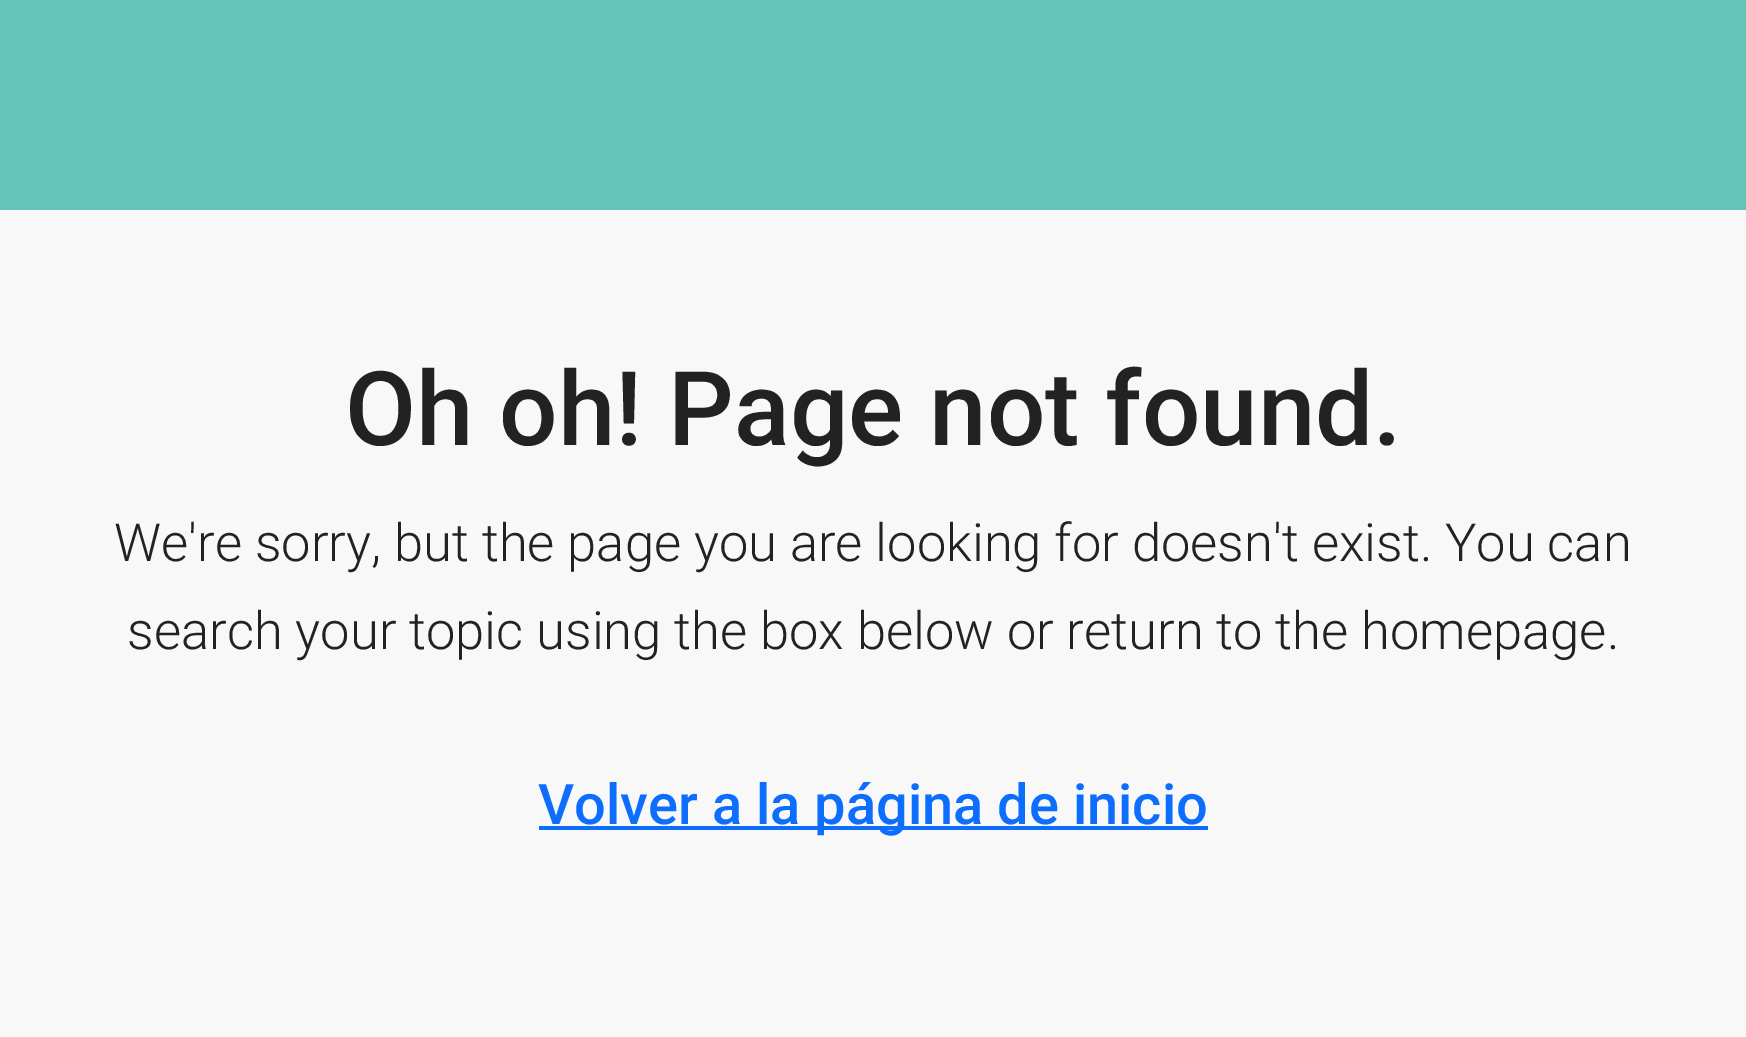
%!PS
<< /PageSize [1746 1037] >> setpagedevice
/co { dup -16 bitshift 255 div exch dup -8 bitshift 255 and 255 div exch 255 and 255 div setrgbcolor } def
/fn { [ exch dup neg 0 0 3 -1 roll 0 0 ] selectfont } def
/tx { co fn moveto show } def
/bx { co rectfill } def
0 1037 translate 1 -1 scale
4 setmiterlimit
0 0 1746 1037 16#F8F8F8 bx
0 0 1746 210 16#66C3BC bx
539 826 669 4 16#0D6EFD bx
(Oh oh! Page not found.) 345 445 /Roboto-Medium 103.25 16#222222 tx
(We're sorry, but the page you are looking for doesn't exist. You can) 114 561 /Roboto-Light 52.5 16#222222 tx
(search your topic using the box below or return to the homepage.) 127 649 /Roboto-Light 52.5 16#222222 tx
(Volver a la página de inicio) 538 824 /Roboto-Medium 56 16#0D6EFD tx
showpage
